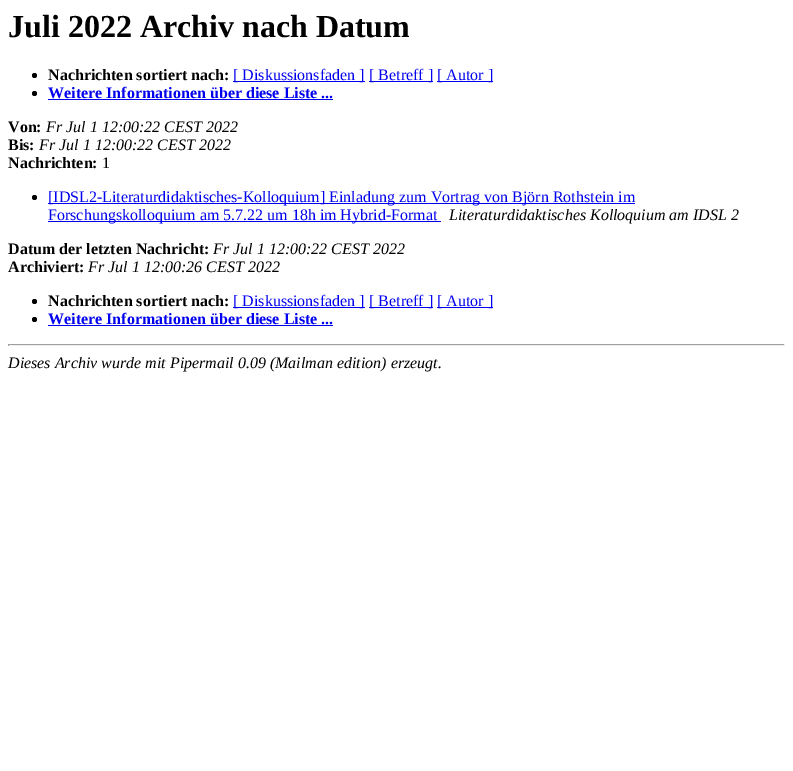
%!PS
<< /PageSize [793 771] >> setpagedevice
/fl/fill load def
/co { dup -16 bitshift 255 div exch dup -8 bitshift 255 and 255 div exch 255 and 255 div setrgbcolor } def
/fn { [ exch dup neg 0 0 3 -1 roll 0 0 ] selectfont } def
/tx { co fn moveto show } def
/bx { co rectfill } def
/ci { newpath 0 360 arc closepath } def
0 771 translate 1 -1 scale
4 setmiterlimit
0 0 793 771 16#FFFFFF bx
16#000000 co
34.5 75.5 2.5 ci fl
233 81 132 1 16#0000EE bx
369 81 64 1 16#0000EE bx
437 81 56 1 16#0000EE bx
16#000000 co
34.5 93.5 2.5 ci fl
48 99 285 1 16#0000EE bx
16#000000 co
34.5 197.5 2.5 ci fl
48 203 587 1 16#0000EE bx
48 221 393 1 16#0000EE bx
16#000000 co
34.5 301.5 2.5 ci fl
233 307 132 1 16#0000EE bx
369 307 64 1 16#0000EE bx
437 307 56 1 16#0000EE bx
16#000000 co
34.5 319.5 2.5 ci fl
48 325 285 1 16#0000EE bx
8 344 777 1 16#9F9F9F bx
784 344 1 2 16#EEEEEE bx
8 345 777 1 16#EEEEEE bx
8 344 1 2 16#9F9F9F bx
(Juli 2022 Archiv nach Datum) 8 37 /LiberationSerif-Bold 32 16#000000 tx
(Nachrichten sortiert nach:) 48 80 /LiberationSerif-Bold 16 16#000000 tx
([ Diskussionsfaden ]) 233 80 /LiberationSerif-Regular 16 16#0000EE tx
([ Betreff ]) 369 80 /LiberationSerif-Regular 16 16#0000EE tx
([ Autor ]) 437 80 /LiberationSerif-Regular 16 16#0000EE tx
(Weitere Informationen über diese Liste ...) 48 98 /LiberationSerif-Bold 16 16#0000EE tx
(Von:) 8 132 /LiberationSerif-Bold 16 16#000000 tx
(Fr Jul 1 12:00:22 CEST 2022) 46 132 /LiberationSerif-Italic 16 16#000000 tx
(Bis:) 8 150 /LiberationSerif-Bold 16 16#000000 tx
(Fr Jul 1 12:00:22 CEST 2022) 39 150 /LiberationSerif-Italic 16 16#000000 tx
(Nachrichten:) 8 168 /LiberationSerif-Bold 16 16#000000 tx
(1) 102 168 /LiberationSerif-Regular 16 16#000000 tx
([IDSL2-Literaturdidaktisches-Kolloquium] Einladung zum Vortrag von Björn Rothstein im) 48 202 /LiberationSerif-Regular 16 16#0000EE tx
(Forschungskolloquium am 5.7.22 um 18h im Hybrid-Format) 48 220 /LiberationSerif-Regular 16 16#0000EE tx
(Literaturdidaktisches Kolloquium am IDSL 2) 449 220 /LiberationSerif-Italic 16 16#000000 tx
(Datum der letzten Nachricht:) 8 254 /LiberationSerif-Bold 16 16#000000 tx
(Fr Jul 1 12:00:22 CEST 2022) 213 254 /LiberationSerif-Italic 16 16#000000 tx
(Archiviert:) 8 272 /LiberationSerif-Bold 16 16#000000 tx
(Fr Jul 1 12:00:26 CEST 2022) 88 272 /LiberationSerif-Italic 16 16#000000 tx
(Nachrichten sortiert nach:) 48 306 /LiberationSerif-Bold 16 16#000000 tx
([ Diskussionsfaden ]) 233 306 /LiberationSerif-Regular 16 16#0000EE tx
([ Betreff ]) 369 306 /LiberationSerif-Regular 16 16#0000EE tx
([ Autor ]) 437 306 /LiberationSerif-Regular 16 16#0000EE tx
(Weitere Informationen über diese Liste ...) 48 324 /LiberationSerif-Bold 16 16#0000EE tx
(Dieses Archiv wurde mit Pipermail 0.09 \(Mailman edition\) erzeugt.) 8 368 /LiberationSerif-Italic 16 16#000000 tx
showpage
